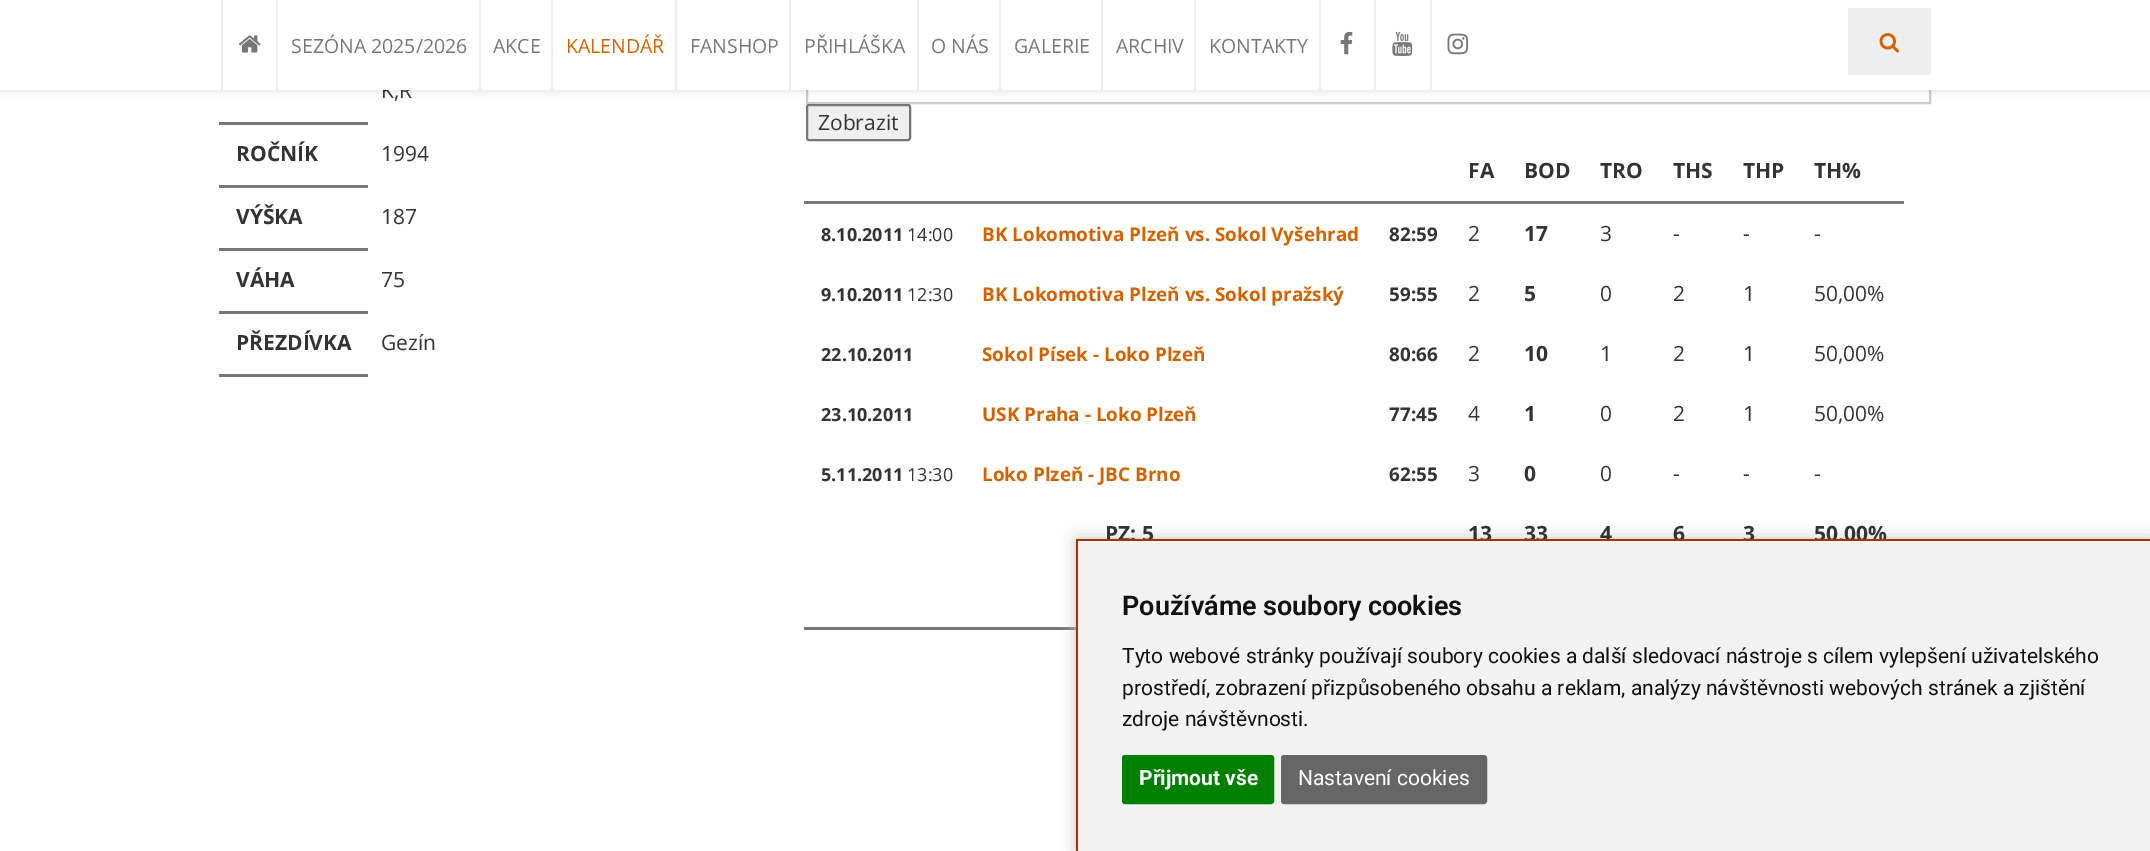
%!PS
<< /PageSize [2150 851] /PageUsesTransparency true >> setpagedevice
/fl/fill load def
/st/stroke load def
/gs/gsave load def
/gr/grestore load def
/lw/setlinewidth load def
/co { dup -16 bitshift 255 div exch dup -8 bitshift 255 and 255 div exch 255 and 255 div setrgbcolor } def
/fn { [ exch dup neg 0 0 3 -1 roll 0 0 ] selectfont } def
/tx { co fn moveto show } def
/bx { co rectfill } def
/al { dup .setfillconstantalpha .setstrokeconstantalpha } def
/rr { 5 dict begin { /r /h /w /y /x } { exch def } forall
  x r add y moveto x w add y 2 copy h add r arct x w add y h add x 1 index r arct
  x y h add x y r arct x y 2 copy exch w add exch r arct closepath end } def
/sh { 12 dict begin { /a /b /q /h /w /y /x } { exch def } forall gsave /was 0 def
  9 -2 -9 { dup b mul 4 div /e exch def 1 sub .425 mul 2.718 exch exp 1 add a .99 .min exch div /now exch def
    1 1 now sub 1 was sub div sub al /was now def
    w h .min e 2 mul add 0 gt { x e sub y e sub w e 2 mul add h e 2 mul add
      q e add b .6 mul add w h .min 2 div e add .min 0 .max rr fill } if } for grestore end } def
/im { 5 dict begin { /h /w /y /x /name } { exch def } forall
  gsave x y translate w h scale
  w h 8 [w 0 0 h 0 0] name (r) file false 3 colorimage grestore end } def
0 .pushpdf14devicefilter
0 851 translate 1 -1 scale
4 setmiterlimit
0 0 2150 851 16#FFFFFF bx
16#CCCCCC co
2 lw
807 54 1123 49 rectstroke
16#000000 co
0 2 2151 90 0 3 .1 sh
219 122 149 3 16#777777 bx
219 185 149 3 16#777777 bx
219 248 149 3 16#777777 bx
219 311 149 3 16#777777 bx
219 374 149 3 16#777777 bx
16#EFEFEF co
807 105 103 35 2 rr gs fl gr
16#767676 co
st
804 201 1100 3 16#777777 bx
804 627 272 3 16#777777 bx
16#C0C0C0 co
1076 539 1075 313 0 7.5 1 sh
(K,R) 381 98 /OpenSans-Regular 21 16#333333 tx
0 0 2150 90 16#FFFFFF bx
1848 8 83 67 16#EEEEEE bx
(media/5.raw) 1879 33 20 20 im
(media/4.raw) 1447 33 22 22 im
1430 0 2 90 16#EEEEEE bx
(media/3.raw) 1392 31 21 25 im
1374 0 2 90 16#EEEEEE bx
(media/2.raw) 1340 31 13 24 im
1319 0 2 90 16#EEEEEE bx
(KONTAKTY) 1209 53 /OpenSans-Regular 19.5 16#777777 tx
1194 0 2 90 16#EEEEEE bx
(ARCHIV) 1116 53 /OpenSans-Regular 19.5 16#777777 tx
1101 0 2 90 16#EEEEEE bx
(GALERIE) 1014 53 /OpenSans-Regular 19.5 16#777777 tx
999 0 2 90 16#EEEEEE bx
(O NÁS) 931 53 /OpenSans-Regular 19.5 16#777777 tx
917 0 2 90 16#EEEEEE bx
(PŘIHLÁŠKA) 804 53 /OpenSans-Regular 19.5 16#777777 tx
789 0 2 90 16#EEEEEE bx
(FANSHOP) 690 53 /OpenSans-Regular 19.5 16#777777 tx
675 0 2 90 16#EEEEEE bx
(KALENDÁŘ) 566 53 /OpenSans-Regular 19.5 16#D56200 tx
551 0 2 90 16#EEEEEE bx
(AKCE) 493 53 /OpenSans-Regular 19.5 16#777777 tx
479 0 2 90 16#EEEEEE bx
(SEZÓNA 2025/2026) 291 53 /OpenSans-Regular 19.5 16#777777 tx
276 0 2 90 16#EEEEEE bx
(media/1.raw) 238 35 23 18 im
221 0 2 90 16#EEEEEE bx
(ROČNÍK) 236 161 /OpenSans-Bold 21 16#333333 tx
(1994) 381 161 /OpenSans-Regular 21 16#333333 tx
(VÝŠKA) 236 224 /OpenSans-Bold 21 16#333333 tx
(187) 381 224 /OpenSans-Regular 21 16#333333 tx
(VÁHA) 236 287 /OpenSans-Bold 21 16#333333 tx
(75) 381 287 /OpenSans-Regular 21 16#333333 tx
(PŘEZDÍVKA) 236 350 /OpenSans-Bold 21 16#333333 tx
(Gezín) 381 350 /OpenSans-Regular 21 16#333333 tx
(Zobrazit) 818 130 /OpenSans-Regular 21 16#333333 tx
(FA) 1468 178 /OpenSans-Bold 21 16#333333 tx
(BOD) 1524 178 /OpenSans-Bold 21 16#333333 tx
(TRO) 1600 178 /OpenSans-Bold 21 16#333333 tx
(THS) 1673 178 /OpenSans-Bold 21 16#333333 tx
(THP) 1743 178 /OpenSans-Bold 21 16#333333 tx
(TH%) 1814 178 /OpenSans-Bold 21 16#333333 tx
(8.10.2011) 821 241 /OpenSans-Bold 18 16#333333 tx
(14:00) 907 241 /OpenSans-Regular 18 16#333333 tx
(BK Lokomotiva Plzeň vs. Sokol Vyšehrad) 982 241 /OpenSans-Bold 18.9 16#D56200 tx
(82:59) 1389 241 /OpenSans-Bold 18.9 16#333333 tx
(2) 1468 241 /OpenSans-Regular 21 16#333333 tx
(17) 1524 241 /OpenSans-Bold 21 16#333333 tx
(3) 1600 241 /OpenSans-Regular 21 16#333333 tx
(-) 1673 241 /OpenSans-Regular 21 16#333333 tx
(-) 1743 241 /OpenSans-Regular 21 16#333333 tx
(-) 1814 241 /OpenSans-Regular 21 16#333333 tx
(9.10.2011) 821 301 /OpenSans-Bold 18 16#333333 tx
(12:30) 907 301 /OpenSans-Regular 18 16#333333 tx
(BK Lokomotiva Plzeň vs. Sokol pražský) 982 301 /OpenSans-Bold 18.9 16#D56200 tx
(59:55) 1389 301 /OpenSans-Bold 18.9 16#333333 tx
(2) 1468 301 /OpenSans-Regular 21 16#333333 tx
(5) 1524 301 /OpenSans-Bold 21 16#333333 tx
(0) 1600 301 /OpenSans-Regular 21 16#333333 tx
(2) 1673 301 /OpenSans-Regular 21 16#333333 tx
(1) 1743 301 /OpenSans-Regular 21 16#333333 tx
(50,00%) 1814 301 /OpenSans-Regular 21 16#333333 tx
(22.10.2011) 821 361 /OpenSans-Bold 18 16#333333 tx
(Sokol Písek - Loko Plzeň) 982 361 /OpenSans-Bold 18.9 16#D56200 tx
(80:66) 1389 361 /OpenSans-Bold 18.9 16#333333 tx
(2) 1468 361 /OpenSans-Regular 21 16#333333 tx
(10) 1524 361 /OpenSans-Bold 21 16#333333 tx
(1) 1600 361 /OpenSans-Regular 21 16#333333 tx
(2) 1673 361 /OpenSans-Regular 21 16#333333 tx
(1) 1743 361 /OpenSans-Regular 21 16#333333 tx
(50,00%) 1814 361 /OpenSans-Regular 21 16#333333 tx
(23.10.2011) 821 421 /OpenSans-Bold 18 16#333333 tx
(USK Praha - Loko Plzeň) 982 421 /OpenSans-Bold 18.9 16#D56200 tx
(77:45) 1389 421 /OpenSans-Bold 18.9 16#333333 tx
(4) 1468 421 /OpenSans-Regular 21 16#333333 tx
(1) 1524 421 /OpenSans-Bold 21 16#333333 tx
(0) 1600 421 /OpenSans-Regular 21 16#333333 tx
(2) 1673 421 /OpenSans-Regular 21 16#333333 tx
(1) 1743 421 /OpenSans-Regular 21 16#333333 tx
(50,00%) 1814 421 /OpenSans-Regular 21 16#333333 tx
(5.11.2011) 821 481 /OpenSans-Bold 18 16#333333 tx
(13:30) 907 481 /OpenSans-Regular 18 16#333333 tx
(Loko Plzeň - JBC Brno) 982 481 /OpenSans-Bold 18.9 16#D56200 tx
(62:55) 1389 481 /OpenSans-Bold 18.9 16#333333 tx
(3) 1468 481 /OpenSans-Regular 21 16#333333 tx
(0) 1524 481 /OpenSans-Bold 21 16#333333 tx
(0) 1600 481 /OpenSans-Regular 21 16#333333 tx
(-) 1673 481 /OpenSans-Regular 21 16#333333 tx
(-) 1743 481 /OpenSans-Regular 21 16#333333 tx
(-) 1814 481 /OpenSans-Regular 21 16#333333 tx
(PZ: 5) 1105 541 /OpenSans-Bold 21 16#333333 tx
(13) 1468 541 /OpenSans-Bold 21 16#333333 tx
(33) 1524 541 /OpenSans-Bold 21 16#333333 tx
(4) 1600 541 /OpenSans-Bold 21 16#333333 tx
(6) 1673 541 /OpenSans-Bold 21 16#333333 tx
(3) 1743 541 /OpenSans-Bold 21 16#333333 tx
(50,00%) 1814 541 /OpenSans-Bold 21 16#333333 tx
1078 541 1072 310 16#F2F2F2 bx
1076 539 1074 2 16#A53200 bx
1076 539 2 312 16#A53200 bx
(Používáme soubory cookies) 1122 615 /Roboto-SemiBold 27 16#111111 tx
(Tyto webové stránky používají soubory cookies a další sledovací nástroje s cílem vylepšení uživatelského) 1122 663 /Roboto-Regular 21 16#111111 tx
(prostředí, zobrazení přizpůsobeného obsahu a reklam, analýzy návštěvnosti webových stránek a zjištění) 1122 695 /Roboto-Regular 21 16#111111 tx
(zdroje návštěvnosti.) 1122 726 /Roboto-Regular 21 16#111111 tx
16#008000 co
1123 756 150 47 2 rr gs fl gr
st
(Přijmout vše) 1139 785 /Roboto-Bold 21 16#FFFFFF tx
16#666666 co
1282 756 204 47 2 rr gs fl gr
st
(Nastavení cookies) 1298 785 /Roboto-Regular 21 16#FFFFFF tx
.poppdf14devicefilter showpage
